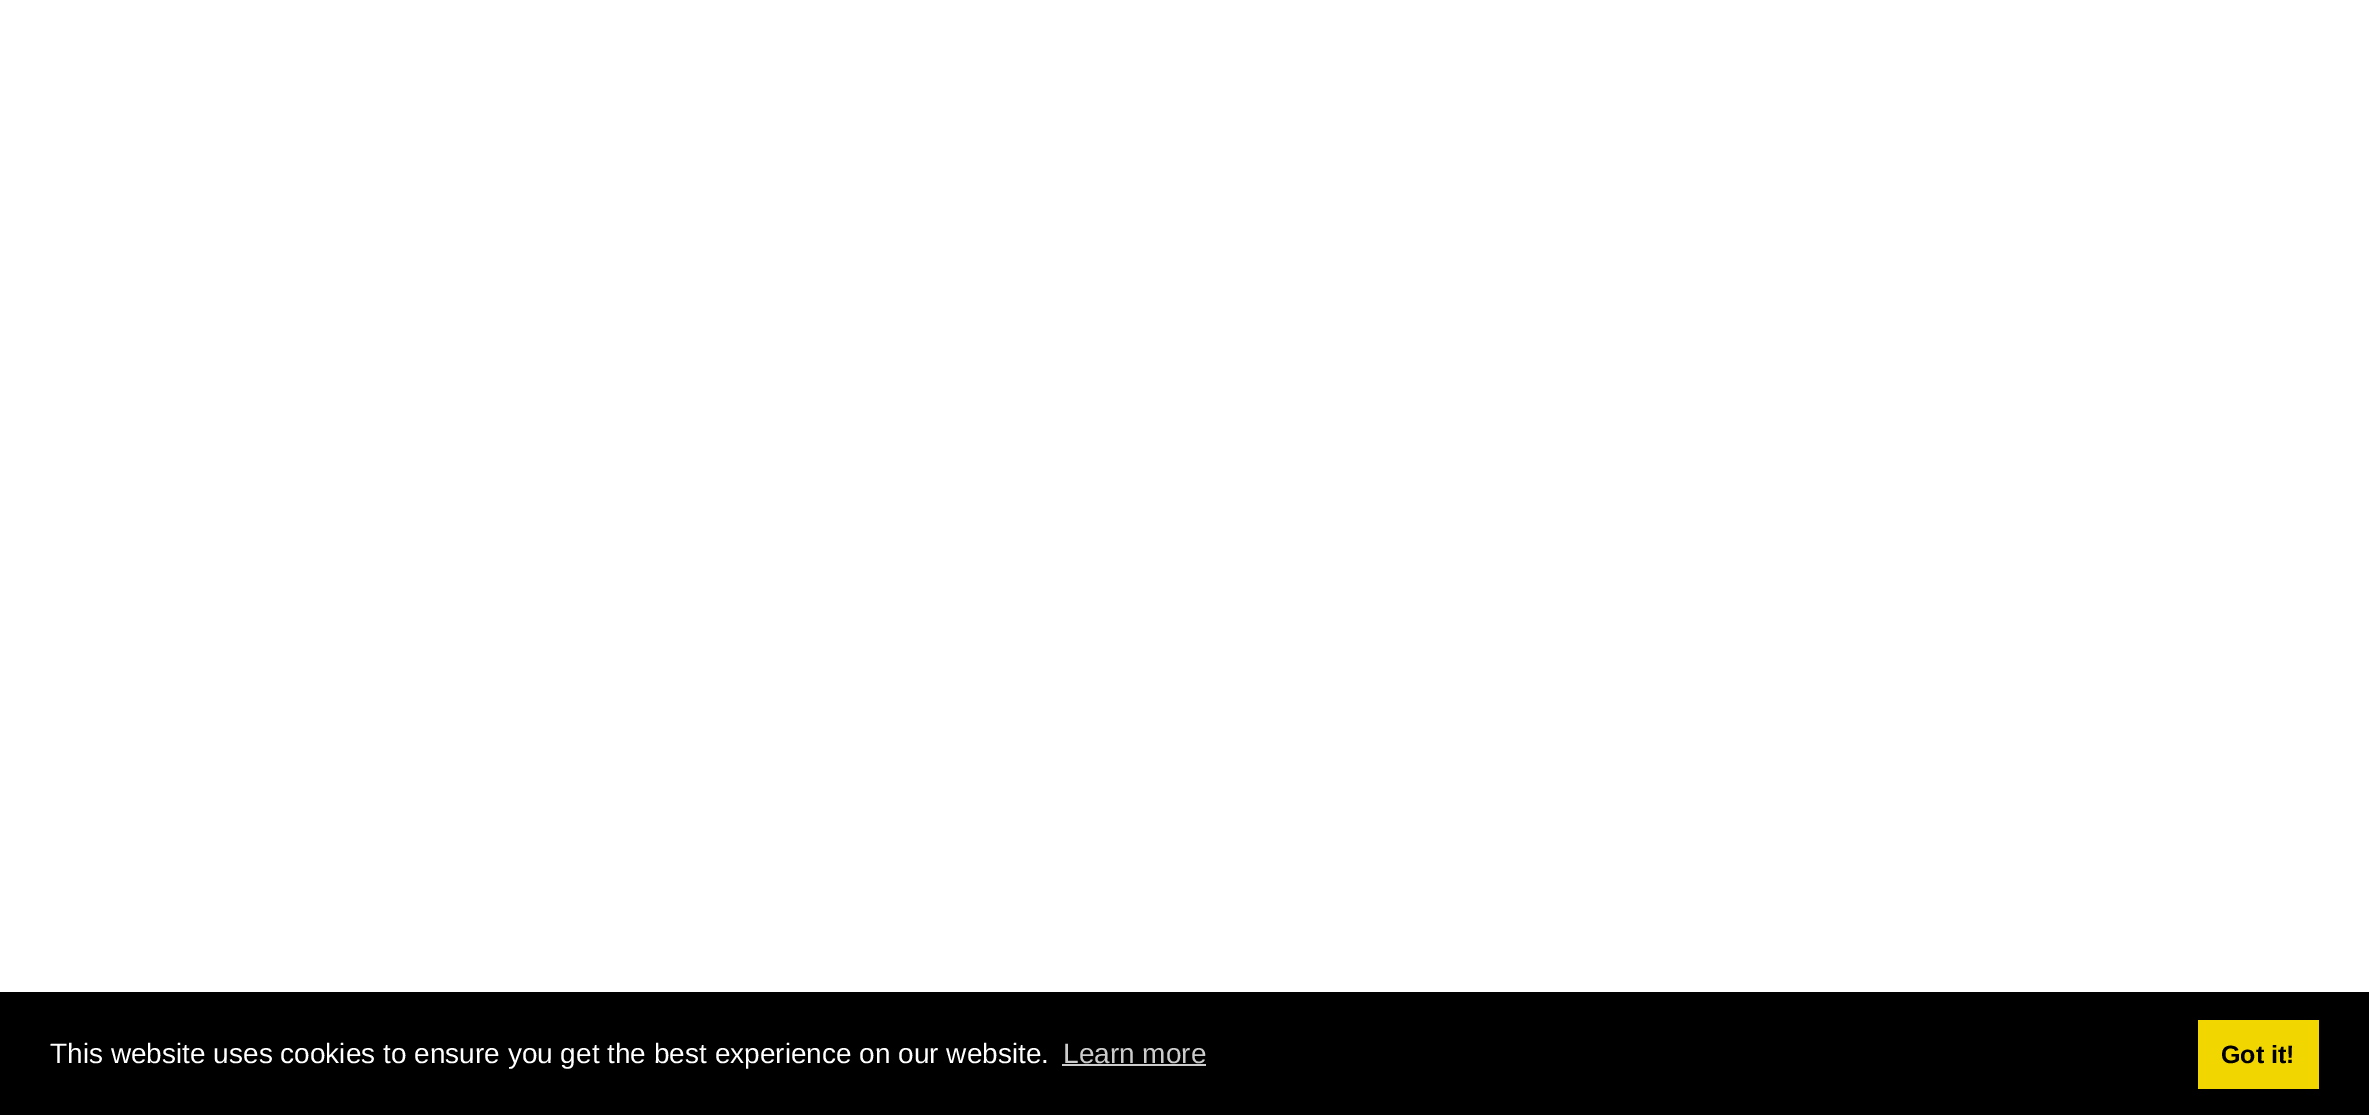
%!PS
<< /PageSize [2369 1115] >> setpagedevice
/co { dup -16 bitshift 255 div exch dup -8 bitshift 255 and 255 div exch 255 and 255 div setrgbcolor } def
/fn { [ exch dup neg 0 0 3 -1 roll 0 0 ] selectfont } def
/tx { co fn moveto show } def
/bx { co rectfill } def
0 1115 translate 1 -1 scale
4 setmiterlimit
0 0 2369 1115 16#FFFFFF bx
0 992 2369 123 16#000000 bx
1062 1064 144 2 16#CCCCCC bx
2198 1020 121 69 16#F1D600 bx
(This website uses cookies to ensure you get the best experience on our website.) 50 1063 /LiberationSans-Regular 28 16#FFFFFF tx
(Learn more) 1063 1063 /LiberationSans-Regular 28 16#CCCCCC tx
(Got it!) 2221 1063 /LiberationSans-Bold 25 16#000000 tx
showpage
